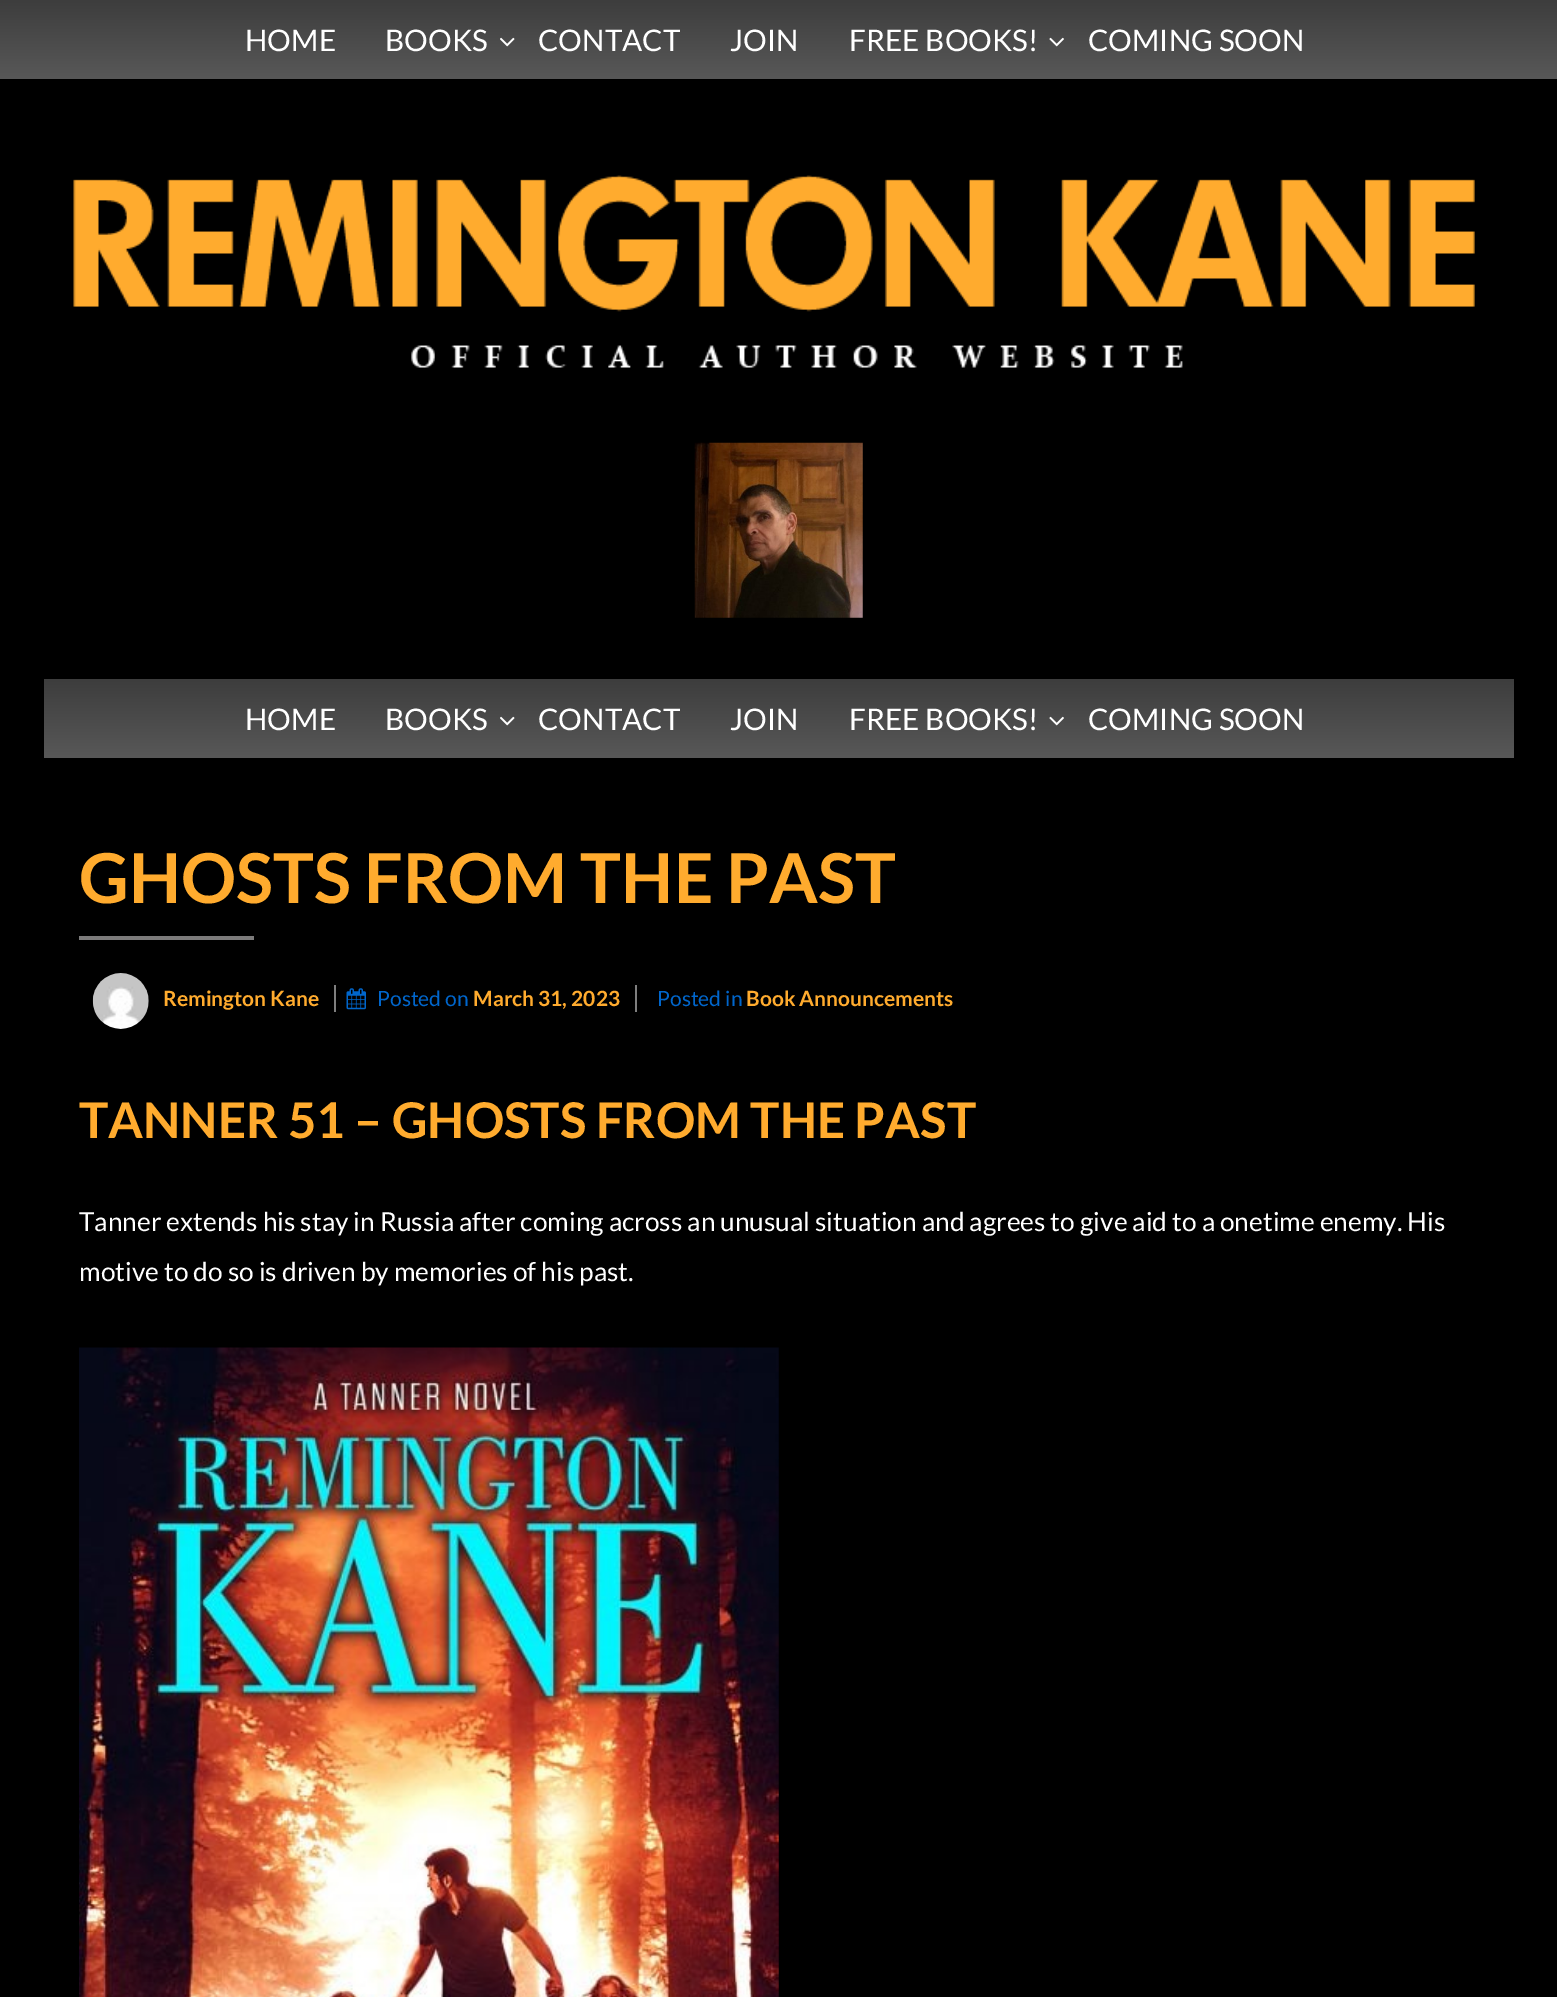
%!PS
<< /PageSize [1557 1997] >> setpagedevice
/mt/moveto load def
/li/lineto load def
/cp/closepath load def
/gs/gsave load def
/gr/grestore load def
/co { dup -16 bitshift 255 div exch dup -8 bitshift 255 and 255 div exch 255 and 255 div setrgbcolor } def
/fn { [ exch dup neg 0 0 3 -1 roll 0 0 ] selectfont } def
/tx { co fn moveto show } def
/bx { co rectfill } def
/im { 5 dict begin { /h /w /y /x /name } { exch def } forall
  gsave x y translate w h scale
  w h 8 [w 0 0 h 0 0] name (r) file false 3 colorimage grestore end } def
0 1997 translate 1 -1 scale
4 setmiterlimit
0 0 1557 1997 16#000000 bx
gs 0 0 mt 1557 0 li 1557 79 li 0 79 li cp clip newpath
<< /ShadingType 2 /ColorSpace /DeviceRGB /Coords [779 79 779 0] /Extend [true true] /Function << /FunctionType 2 /Domain [0 1] /C0 [.345 .345 .345] /C1 [.239 .239 .239] /N 1 >> >> shfill gr
(media/1.raw) 500 37 15 10 im
(media/2.raw) 1049 37 15 10 im
(media/3.raw) 73 175 1402 193 im
(media/4.raw) 694 442 169 176 im
gs 44 679 mt 1514 679 li 1514 758 li 44 758 li cp clip newpath
<< /ShadingType 2 /ColorSpace /DeviceRGB /Coords [779 758 779 679] /Extend [true true] /Function << /FunctionType 2 /Domain [0 1] /C0 [.345 .345 .345] /C1 [.239 .239 .239] /N 1 >> >> shfill gr
(media/1.raw) 500 716 15 10 im
(media/2.raw) 1049 716 15 10 im
79 936 175 4 16#7C7B7B bx
(media/5.raw) 92 973 57 56 im
334 985 2 27 16#7E7E7E bx
(media/6.raw) 346 988 20 22 im
635 985 2 27 16#7E7E7E bx
(media/7.raw) 79 1347 700 650 im
(HOME) 245 51 /Lato-Regular 29.75 16#FFFFFF tx
(BOOKS) 385 51 /Lato-Regular 29.75 16#FFFFFF tx
(CONTACT) 538 51 /Lato-Regular 29.75 16#FFFFFF tx
(JOIN) 730 51 /Lato-Regular 29.75 16#FFFFFF tx
(FREE BOOKS!) 849 51 /Lato-Regular 29.75 16#FFFFFF tx
(COMING SOON) 1088 51 /Lato-Regular 29.75 16#FFFFFF tx
(HOME) 245 730 /Lato-Regular 29.75 16#FFFFFF tx
(BOOKS) 385 730 /Lato-Regular 29.75 16#FFFFFF tx
(CONTACT) 538 730 /Lato-Regular 29.75 16#FFFFFF tx
(JOIN) 730 730 /Lato-Regular 29.75 16#FFFFFF tx
(FREE BOOKS!) 849 730 /Lato-Regular 29.75 16#FFFFFF tx
(COMING SOON) 1088 730 /Lato-Regular 29.75 16#FFFFFF tx
(GHOSTS FROM THE PAST) 79 903 /Lato-Bold 68.9 16#FFAB2E tx
(Remington Kane) 163 1006 /Lato-Bold 21 16#FFAB2E tx
(Posted on) 377 1006 /Lato-Regular 21 16#0066CC tx
(March 31, 2023) 473 1006 /Lato-Bold 21 16#FFAB2E tx
(Posted in) 657 1006 /Lato-Regular 21 16#0066CC tx
(Book Announcements) 746 1006 /Lato-Bold 21 16#FFAB2E tx
(TANNER 51 – GHOSTS FROM THE PAST) 79 1138 /Lato-Bold 49.25 16#FFAB2E tx
(Tanner extends his stay in Russia after coming across an unusual situation and agrees to give aid to a onetime enemy. His) 79 1231 /Lato-Regular 26.25 16#FFFFFF tx
(motive to do so is driven by memories of his past.) 79 1281 /Lato-Regular 26.25 16#FFFFFF tx
showpage
